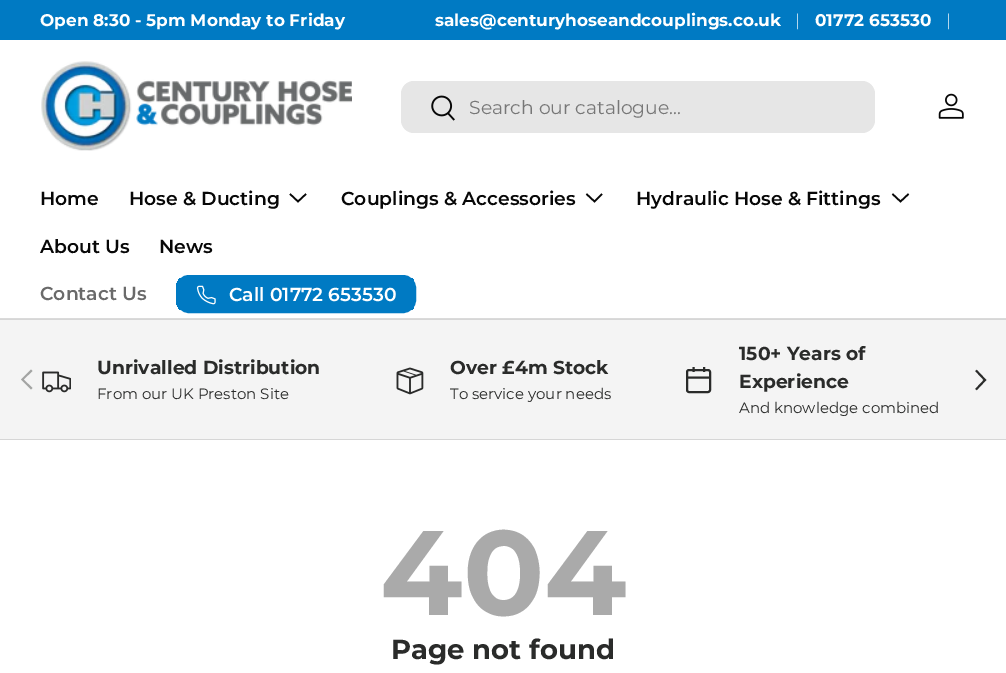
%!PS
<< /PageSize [1006 673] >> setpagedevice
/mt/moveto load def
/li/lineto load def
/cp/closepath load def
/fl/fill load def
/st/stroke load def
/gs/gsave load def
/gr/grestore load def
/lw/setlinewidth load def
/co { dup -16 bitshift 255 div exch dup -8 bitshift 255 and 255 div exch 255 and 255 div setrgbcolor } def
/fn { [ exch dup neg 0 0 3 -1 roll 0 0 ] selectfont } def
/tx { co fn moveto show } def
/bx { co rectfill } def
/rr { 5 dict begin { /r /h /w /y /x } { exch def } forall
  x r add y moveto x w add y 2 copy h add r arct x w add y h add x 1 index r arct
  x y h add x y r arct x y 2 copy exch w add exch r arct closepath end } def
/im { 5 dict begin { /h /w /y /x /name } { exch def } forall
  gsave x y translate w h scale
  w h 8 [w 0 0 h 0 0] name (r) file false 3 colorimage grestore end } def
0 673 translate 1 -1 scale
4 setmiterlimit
0 0 1006 673 16#FFFFFF bx
0 0 1006 40 16#007AC3 bx
0 318 1006 1 16#DADADA bx
(media/1.raw) 41 61 311 90 im
16#E6E6E6 co
401 81 474 52 13 rr fl
(media/2.raw) 431 95 24 26 im
(media/3.raw) 938 93 26 26 im
16#070707 co
1.6 lw
306 194 mt 298 201.5 li 290 194 li st
602 194 mt 594.5 201.5 li 586.5 194 li st
908.5 194 mt 900.5 201.5 li 892.5 194 li st
gs
176 275 240 38 13 rr clip newpath
gs 176 278 mt 414 278 li 414 310 li 176 310 li cp clip newpath
<< /ShadingType 2 /ColorSpace /DeviceRGB /Coords [-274 210 397 377] /Extend [true true] /Function << /FunctionType 3 /Domain [0 1] /Functions [<< /FunctionType 2 /Domain [0 1] /C0 [.165 .592 .843] /C1 [.165 .592 .843] /N 1 >> << /FunctionType 2 /Domain [0 1] /C0 [0 .478 .765] /C1 [0 .478 .765] /N 1 >>] /Bounds [.6] /Encode [0 1 0 1] >> >> shfill gr
gr
16#007AC3 co
3 lw
177.5 276.5 237 35 11.5 rr st
(media/4.raw) 196 285 20 20 im
0 320 1006 119 16#F4F4F4 bx
0 319 1006 1 16#D6D6D6 bx
0 439 1006 1 16#D6D6D6 bx
(media/5.raw) 42 371 29 22 im
(media/6.raw) 396 367 28 28 im
16#2A2B2A co
2 lw
687 370 23 22 2 rr st
1.9 lw
704 367 mt 704 372 li 693.5 367 mt 693.5 372 li 687.5 377.5 mt 710 377.5 li st
16#A3A4A3 co
21 379.5 mt 31 369.5 li 32.5 371 li 23.5 379.5 li 32.5 388 li 31 389.5 li cp fl
16#2A2B2A co
976 370.5 mt 985 380 li 976 389.5 li st
(Open 8:30 - 5pm Monday to Friday) 40 26 /Montserrat-Bold 16.9 16#FFFFFF tx
(sales@centuryhoseandcouplings.co.uk) 435 26 /Montserrat-Bold 16.9 16#FFFFFF tx
(|) 795 26 /Montserrat-Regular 16.9 16#B3D7ED tx
(01772 653530) 815 26 /Montserrat-Bold 16.9 16#FFFFFF tx
(|) 946 26 /Montserrat-Regular 16.9 16#B3D7ED tx
(Search our catalogue...) 469 114 /Montserrat-Regular 18.75 16#777777 tx
(Home) 40 205 /Montserrat-SemiBold 18.75 16#070707 tx
(Hose & Ducting) 129 205 /Montserrat-SemiBold 18.75 16#070707 tx
(Couplings & Accessories) 341 205 /Montserrat-SemiBold 18.75 16#070707 tx
(Hydraulic Hose & Fittings) 636 205 /Montserrat-SemiBold 18.75 16#070707 tx
(About Us) 40 253 /Montserrat-SemiBold 18.75 16#070707 tx
(News) 159 253 /Montserrat-SemiBold 18.75 16#070707 tx
(Contact Us) 40 300 /Montserrat-SemiBold 18.75 16#6A6A6A tx
(Call 01772 653530) 229 301 /Montserrat-SemiBold 18.75 16#FFFFFF tx
(Unrivalled Distribution) 97 374 /Montserrat-Bold 18.75 16#2A2B2A tx
(From our UK Preston Site) 97 399 /Montserrat-Regular 15 16#2A2B2A tx
(Over £4m Stock) 450 374 /Montserrat-Bold 18.75 16#2A2B2A tx
(To service your needs) 450 399 /Montserrat-Regular 15 16#2A2B2A tx
(150+ Years of) 739 360 /Montserrat-Bold 18.75 16#2A2B2A tx
(Experience) 739 388 /Montserrat-Bold 18.75 16#2A2B2A tx
(And knowledge combined) 739 413 /Montserrat-Regular 15 16#2A2B2A tx
(404) 380 615 /Montserrat-Bold 120 16#AAAAAA tx
(Page not found) 391 659 /Montserrat-Bold 27.5 16#2A2B2A tx
showpage
